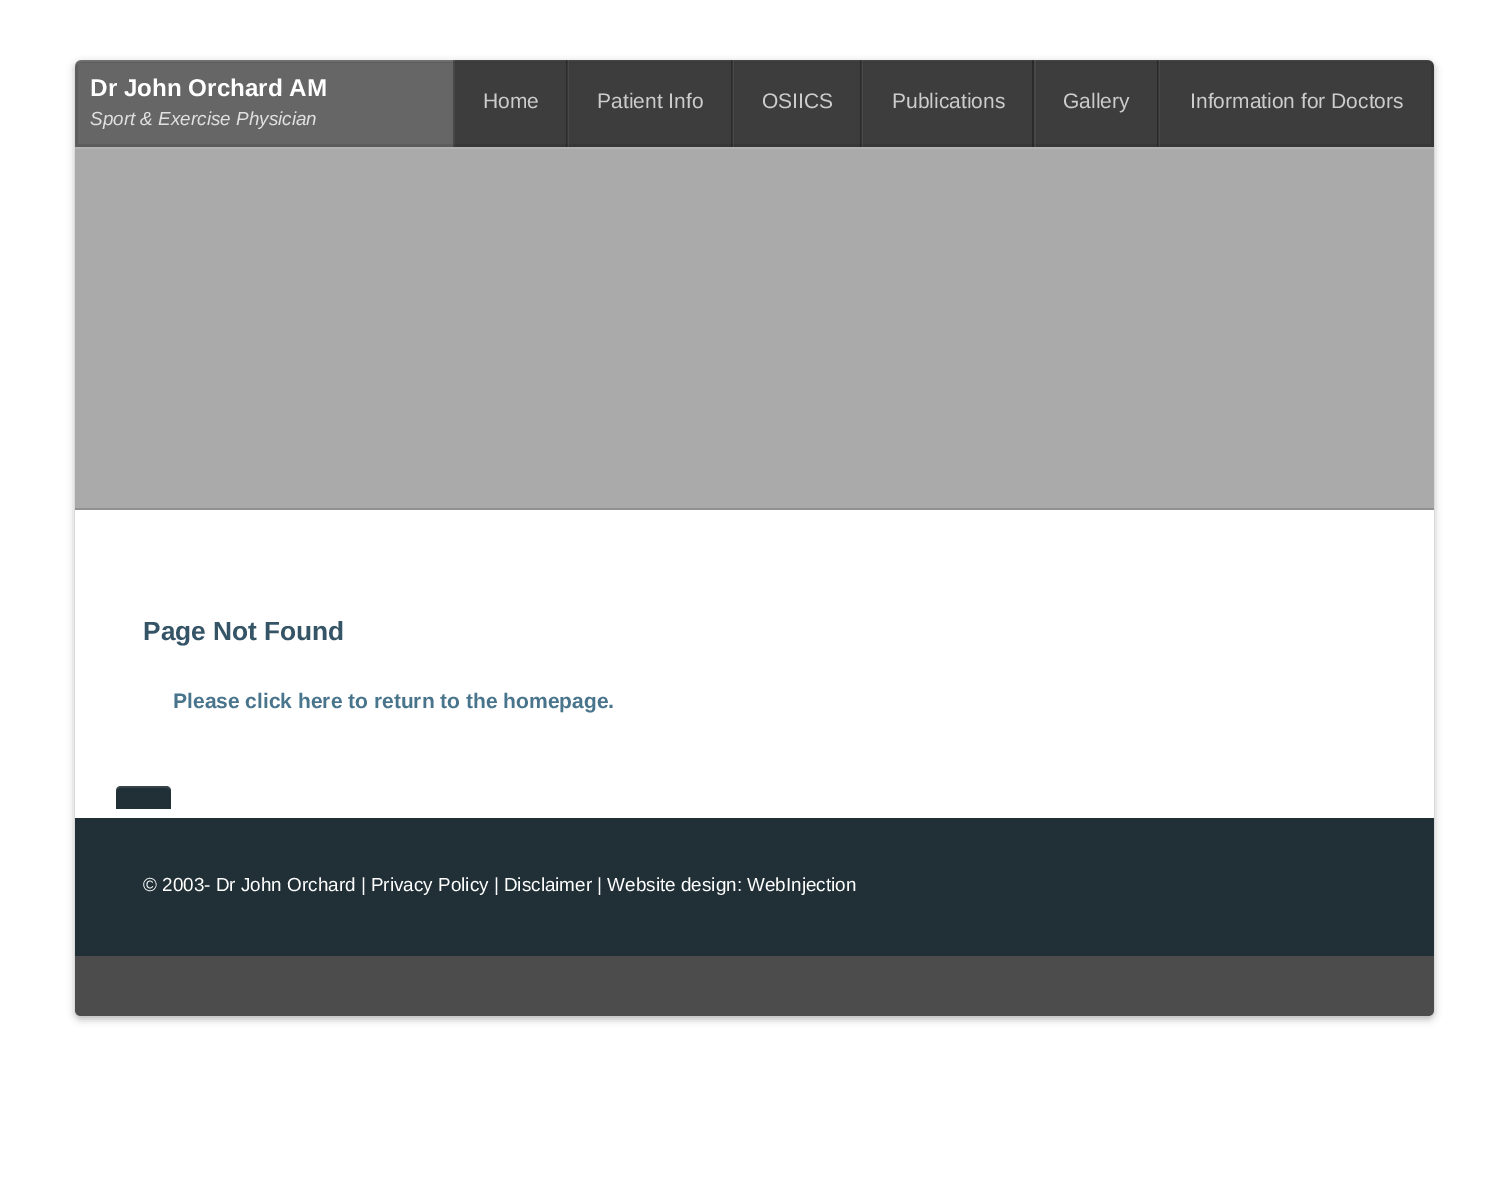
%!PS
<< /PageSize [1508 1177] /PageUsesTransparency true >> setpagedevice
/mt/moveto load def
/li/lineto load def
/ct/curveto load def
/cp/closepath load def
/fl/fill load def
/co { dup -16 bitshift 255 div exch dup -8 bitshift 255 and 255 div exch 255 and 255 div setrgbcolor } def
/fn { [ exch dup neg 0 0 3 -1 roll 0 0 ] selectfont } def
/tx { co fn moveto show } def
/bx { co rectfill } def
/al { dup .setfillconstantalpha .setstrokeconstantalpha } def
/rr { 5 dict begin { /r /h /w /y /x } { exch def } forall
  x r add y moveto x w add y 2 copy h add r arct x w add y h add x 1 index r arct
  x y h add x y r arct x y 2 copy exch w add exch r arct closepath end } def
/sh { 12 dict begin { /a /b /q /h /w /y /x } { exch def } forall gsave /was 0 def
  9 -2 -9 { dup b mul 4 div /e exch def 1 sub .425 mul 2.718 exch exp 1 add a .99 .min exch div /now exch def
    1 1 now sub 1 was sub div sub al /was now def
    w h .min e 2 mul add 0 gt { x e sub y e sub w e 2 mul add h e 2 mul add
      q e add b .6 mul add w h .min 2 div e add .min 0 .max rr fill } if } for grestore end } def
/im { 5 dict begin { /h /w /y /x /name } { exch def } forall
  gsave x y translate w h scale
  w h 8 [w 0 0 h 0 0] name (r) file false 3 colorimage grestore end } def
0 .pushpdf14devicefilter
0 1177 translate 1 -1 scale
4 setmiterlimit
0 0 1508 1177 16#FFFFFF bx
16#000000 co
75 63 1359 956 6 4 .3 sh
16#AAAAAA co
81 60 mt 1428 60 li 1431.5 60 1434 62.5 1434 66 ct 1434 510 li 75 510 li 75 66 li 75 62.5 77.5 60 81 60 ct cp fl
75 508 1359 2 16#919191 bx
0.1 al
16#FFFFFF co
1434 149 mt 75 149 li 75 66 li 75 65 75 64 76 63 ct 76 147 li 1434 147 li cp 81 60 mt 78 61 li 1431 61 li 1428 60 li cp eofill
16#000000 co
81 60 mt 78 60 75 63 75 66 ct 75 147 li 1434 147 li 1434 66 li 1434 63 1431 60 1428 60 ct cp 78 63 mt 78 144 li 1431 144 li 1431 63 li cp eofill
1 al
(media/1.raw) 75 60 1359 87 im
0.1 al
16#FFFFFF co
81 62 mt 78 62 75 64 75 68 ct 75 66 li 75 63 78 60 81 60 ct 1428 60 li 1431 60 1434 63 1434 66 ct 1434 68 li 1434 64 1431 62 1428 62 ct cp fl
1 al
(media/2.raw) 453 60 981 87 im
0.3 al
566 60 2 87 16#000000 bx
0.06 al
453 60 2 87 16#FFFFFF bx
0.3 al
731 60 2 87 16#000000 bx
0.06 al
567 60 2 87 16#FFFFFF bx
0.3 al
860 60 2 87 16#000000 bx
0.06 al
732 60 2 87 16#FFFFFF bx
0.3 al
1032 60 2 87 16#000000 bx
0.06 al
861 60 2 87 16#FFFFFF bx
0.3 al
1157 60 2 87 16#000000 bx
0.06 al
1034 60 2 87 16#FFFFFF bx
1158 60 2 87 16#FFFFFF bx
1 al
75 510 mt 1434 510 li 1434 1008 li 1434 1012.5 1430.5 1016 1426 1016 ct 83 1016 li 78.5 1016 75 1012.5 75 1008 ct cp fl
16#203036 co
121 786 mt 166 786 li 169 786 171 788 171 791 ct 171 809 li 116 809 li 116 791 li 116 788 118 786 121 786 ct cp fl
0.1 al
16#FFFFFF co
120 788 mt 166 788 li 169 788 171 790 171 792 ct 171 784 164 786 158 786 ct 128 786 li 123 786 116 784 116 792 ct 116 790 118 788 120 788 ct cp fl
1 al
75 818 1359 138 16#203036 bx
16#4C4C4C co
75 956 mt 1434 956 li 1434 1010 li 1434 1013.5 1431.5 1016 1428 1016 ct 81 1016 li 77.5 1016 75 1013.5 75 1010 ct cp fl
(Dr John Orchard AM) 90 96 /LiberationSans-Bold 24.25 16#FFFFFF tx
(Sport & Exercise Physician) 90 125 /LiberationSans-Italic 18.9 16#E0E0E0 tx
(Home) 483 108 /LiberationSans-Regular 21 16#CCCCCC tx
(Patient Info) 597 108 /LiberationSans-Regular 21 16#CCCCCC tx
(OSIICS) 762 108 /LiberationSans-Regular 21 16#CCCCCC tx
(Publications) 892 108 /LiberationSans-Regular 21 16#CCCCCC tx
(Gallery) 1063 108 /LiberationSans-Regular 21 16#CCCCCC tx
(Information for Doctors) 1190 108 /LiberationSans-Regular 21 16#CCCCCC tx
(Page Not Found) 143 640 /LiberationSans-Bold 26.25 16#355567 tx
(Please click here to return to the homepage.) 173 708 /LiberationSans-Bold 21 16#48748C tx
(© 2003- Dr John Orchard | Privacy Policy | Disclaimer | Website design: WebInjection) 143 891 /LiberationSans-Regular 18.9 16#FFFFFF tx
.poppdf14devicefilter showpage
